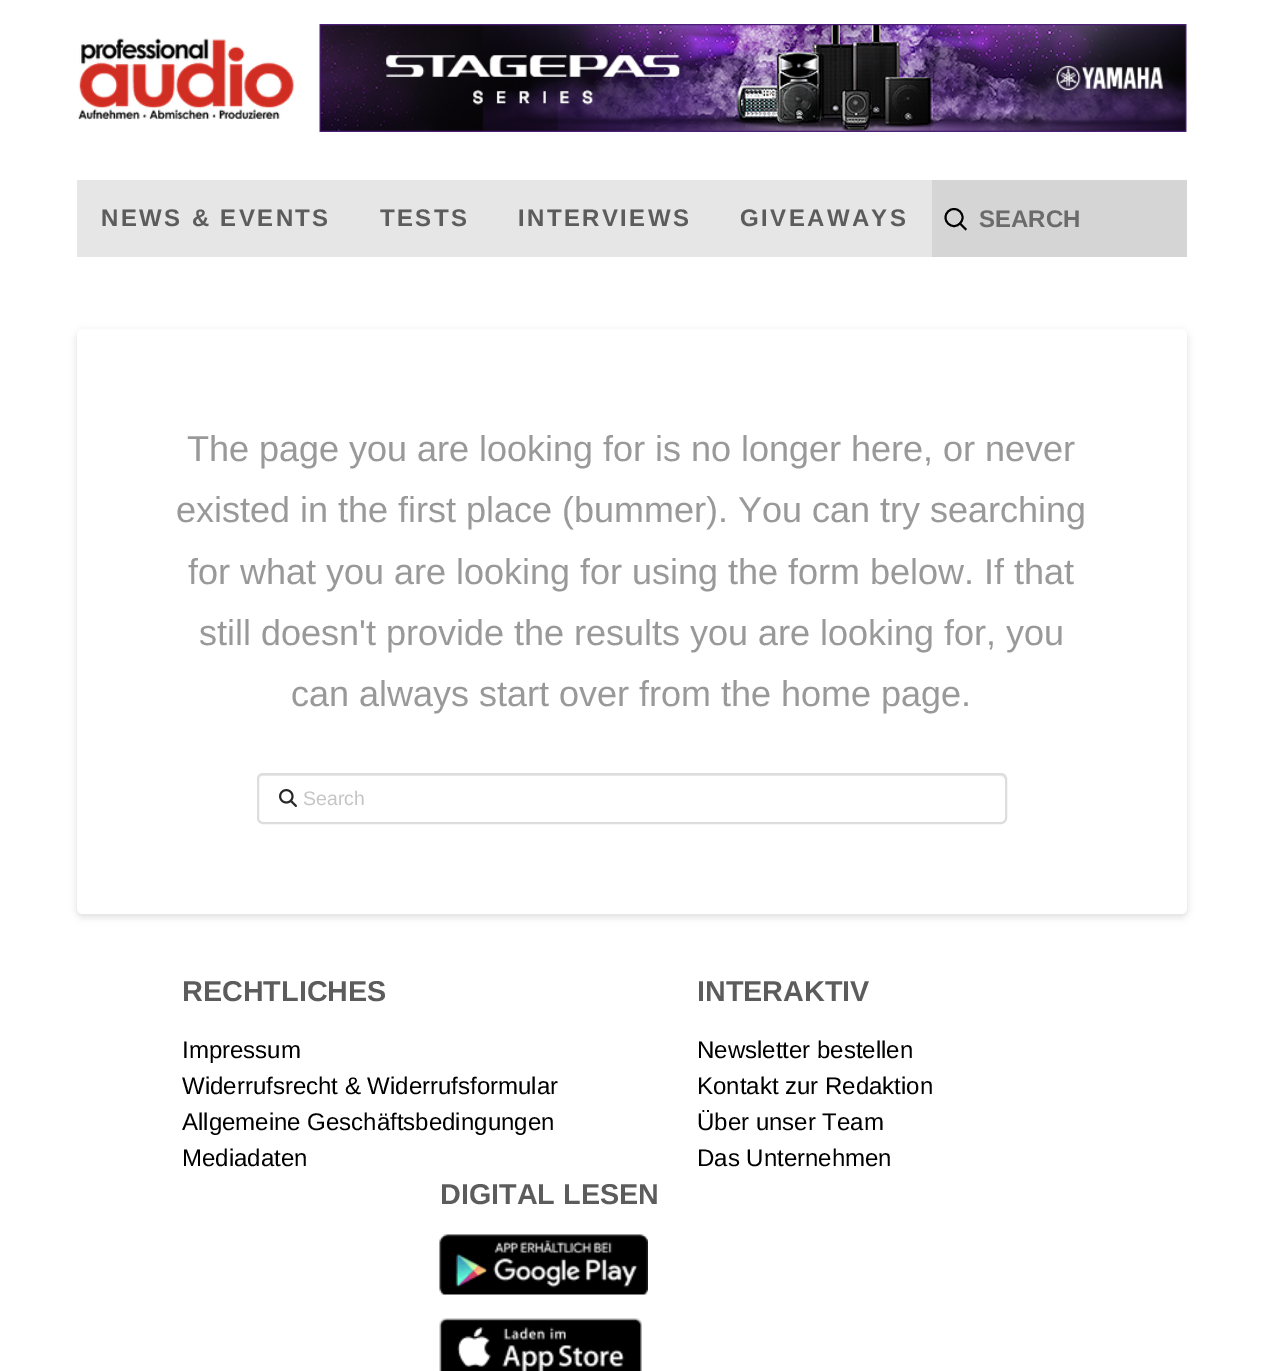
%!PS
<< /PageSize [1262 1371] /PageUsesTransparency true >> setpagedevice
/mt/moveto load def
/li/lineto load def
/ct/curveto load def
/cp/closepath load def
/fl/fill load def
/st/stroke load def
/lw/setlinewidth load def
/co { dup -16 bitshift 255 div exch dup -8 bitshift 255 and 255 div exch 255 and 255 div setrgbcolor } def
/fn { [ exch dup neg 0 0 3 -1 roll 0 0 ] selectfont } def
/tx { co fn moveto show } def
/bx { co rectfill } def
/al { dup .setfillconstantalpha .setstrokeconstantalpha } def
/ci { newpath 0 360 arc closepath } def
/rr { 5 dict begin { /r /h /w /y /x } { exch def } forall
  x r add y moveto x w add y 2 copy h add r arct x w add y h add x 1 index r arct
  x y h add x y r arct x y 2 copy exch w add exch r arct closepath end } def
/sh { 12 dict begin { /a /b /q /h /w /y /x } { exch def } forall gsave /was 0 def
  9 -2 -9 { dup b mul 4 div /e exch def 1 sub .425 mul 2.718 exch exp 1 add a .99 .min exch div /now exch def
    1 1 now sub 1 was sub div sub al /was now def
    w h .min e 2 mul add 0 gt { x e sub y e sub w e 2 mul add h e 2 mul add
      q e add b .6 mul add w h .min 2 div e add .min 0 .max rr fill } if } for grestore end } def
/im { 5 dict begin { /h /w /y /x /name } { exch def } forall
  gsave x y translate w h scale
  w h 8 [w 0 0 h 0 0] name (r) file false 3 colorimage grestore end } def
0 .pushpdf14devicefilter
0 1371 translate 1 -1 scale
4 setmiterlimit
0 0 1262 1371 16#FFFFFF bx
(media/1.raw) 78 38 218 82 im
(media/2.raw) 319 24 868 108 im
77 180 855 77 16#E6E6E6 bx
932 180 255 77 16#D5D5D5 bx
16#000000 co
1.9 lw
954 217.5 8.5 ci st
2 setlinecap
965.5 229 mt 960 223.5 li st
77 332 1110 585 6 4 .13 sh
16#FFFFFF co
77 329 1110 585 6 rr fl
16#ECECEC co
262 776 mt 1000 776 li 1003 776 1005 778 1005 780 ct 1005 779 li 1005 776 1003 774 1000 774 ct 263 774 li 260 774 258 776 258 779 ct 258 780 li 258 778 260 776 262 776 ct cp fl
16#DDDDDD co
2 lw
0 setlinecap
258 774 748 49 5 rr st
(media/3.raw) 279 789 18 18 im
(media/4.raw) 439 1234 209 61 im
(media/5.raw) 439 1318 203 53 im
/LiberationSans-Bold 24 fn
16#5C5C5C co
101 226 mt 2.4 0 (NEWS & EVENTS) ashow
380 226 mt 2.4 0 (TESTS) ashow
518 226 mt 2.4 0 (INTERVIEWS) ashow
740 226 mt 2.4 0 (GIVEAWAYS) ashow
(SEARCH) 979 227 /LiberationSans-Bold 24 16#6B6B6B tx
(The page you are looking for is no longer here, or never) 187 461 /LiberationSans-Regular 36 16#999999 tx
(existed in the first place \(bummer\). You can try searching) 176 522 /LiberationSans-Regular 36 16#999999 tx
(for what you are looking for using the form below. If that) 188 584 /LiberationSans-Regular 36 16#999999 tx
(still doesn't provide the results you are looking for, you) 199 645 /LiberationSans-Regular 36 16#999999 tx
(can always start over from the home page.) 291 706 /LiberationSans-Regular 36 16#999999 tx
(Search) 303 805 /LiberationSans-Regular 19.5 16#C5C5C5 tx
(RECHTLICHES) 182 1001 /LiberationSans-Bold 28.75 16#5C5C5C tx
(Impressum) 182 1058 /LiberationSans-Regular 24 16#000000 tx
(Widerrufsrecht & Widerrufsformular) 182 1094 /LiberationSans-Regular 24 16#000000 tx
(Allgemeine Geschäftsbedingungen) 182 1130 /LiberationSans-Regular 24 16#000000 tx
(Mediadaten) 182 1166 /LiberationSans-Regular 24 16#000000 tx
(INTERAKTIV) 697 1001 /LiberationSans-Bold 28.75 16#5C5C5C tx
(Newsletter bestellen) 697 1058 /LiberationSans-Regular 24 16#000000 tx
(Kontakt zur Redaktion) 697 1094 /LiberationSans-Regular 24 16#000000 tx
(Über unser Team) 697 1130 /LiberationSans-Regular 24 16#000000 tx
(Das Unternehmen) 697 1166 /LiberationSans-Regular 24 16#000000 tx
(DIGITAL LESEN) 440 1204 /LiberationSans-Bold 28.75 16#5C5C5C tx
.poppdf14devicefilter showpage
